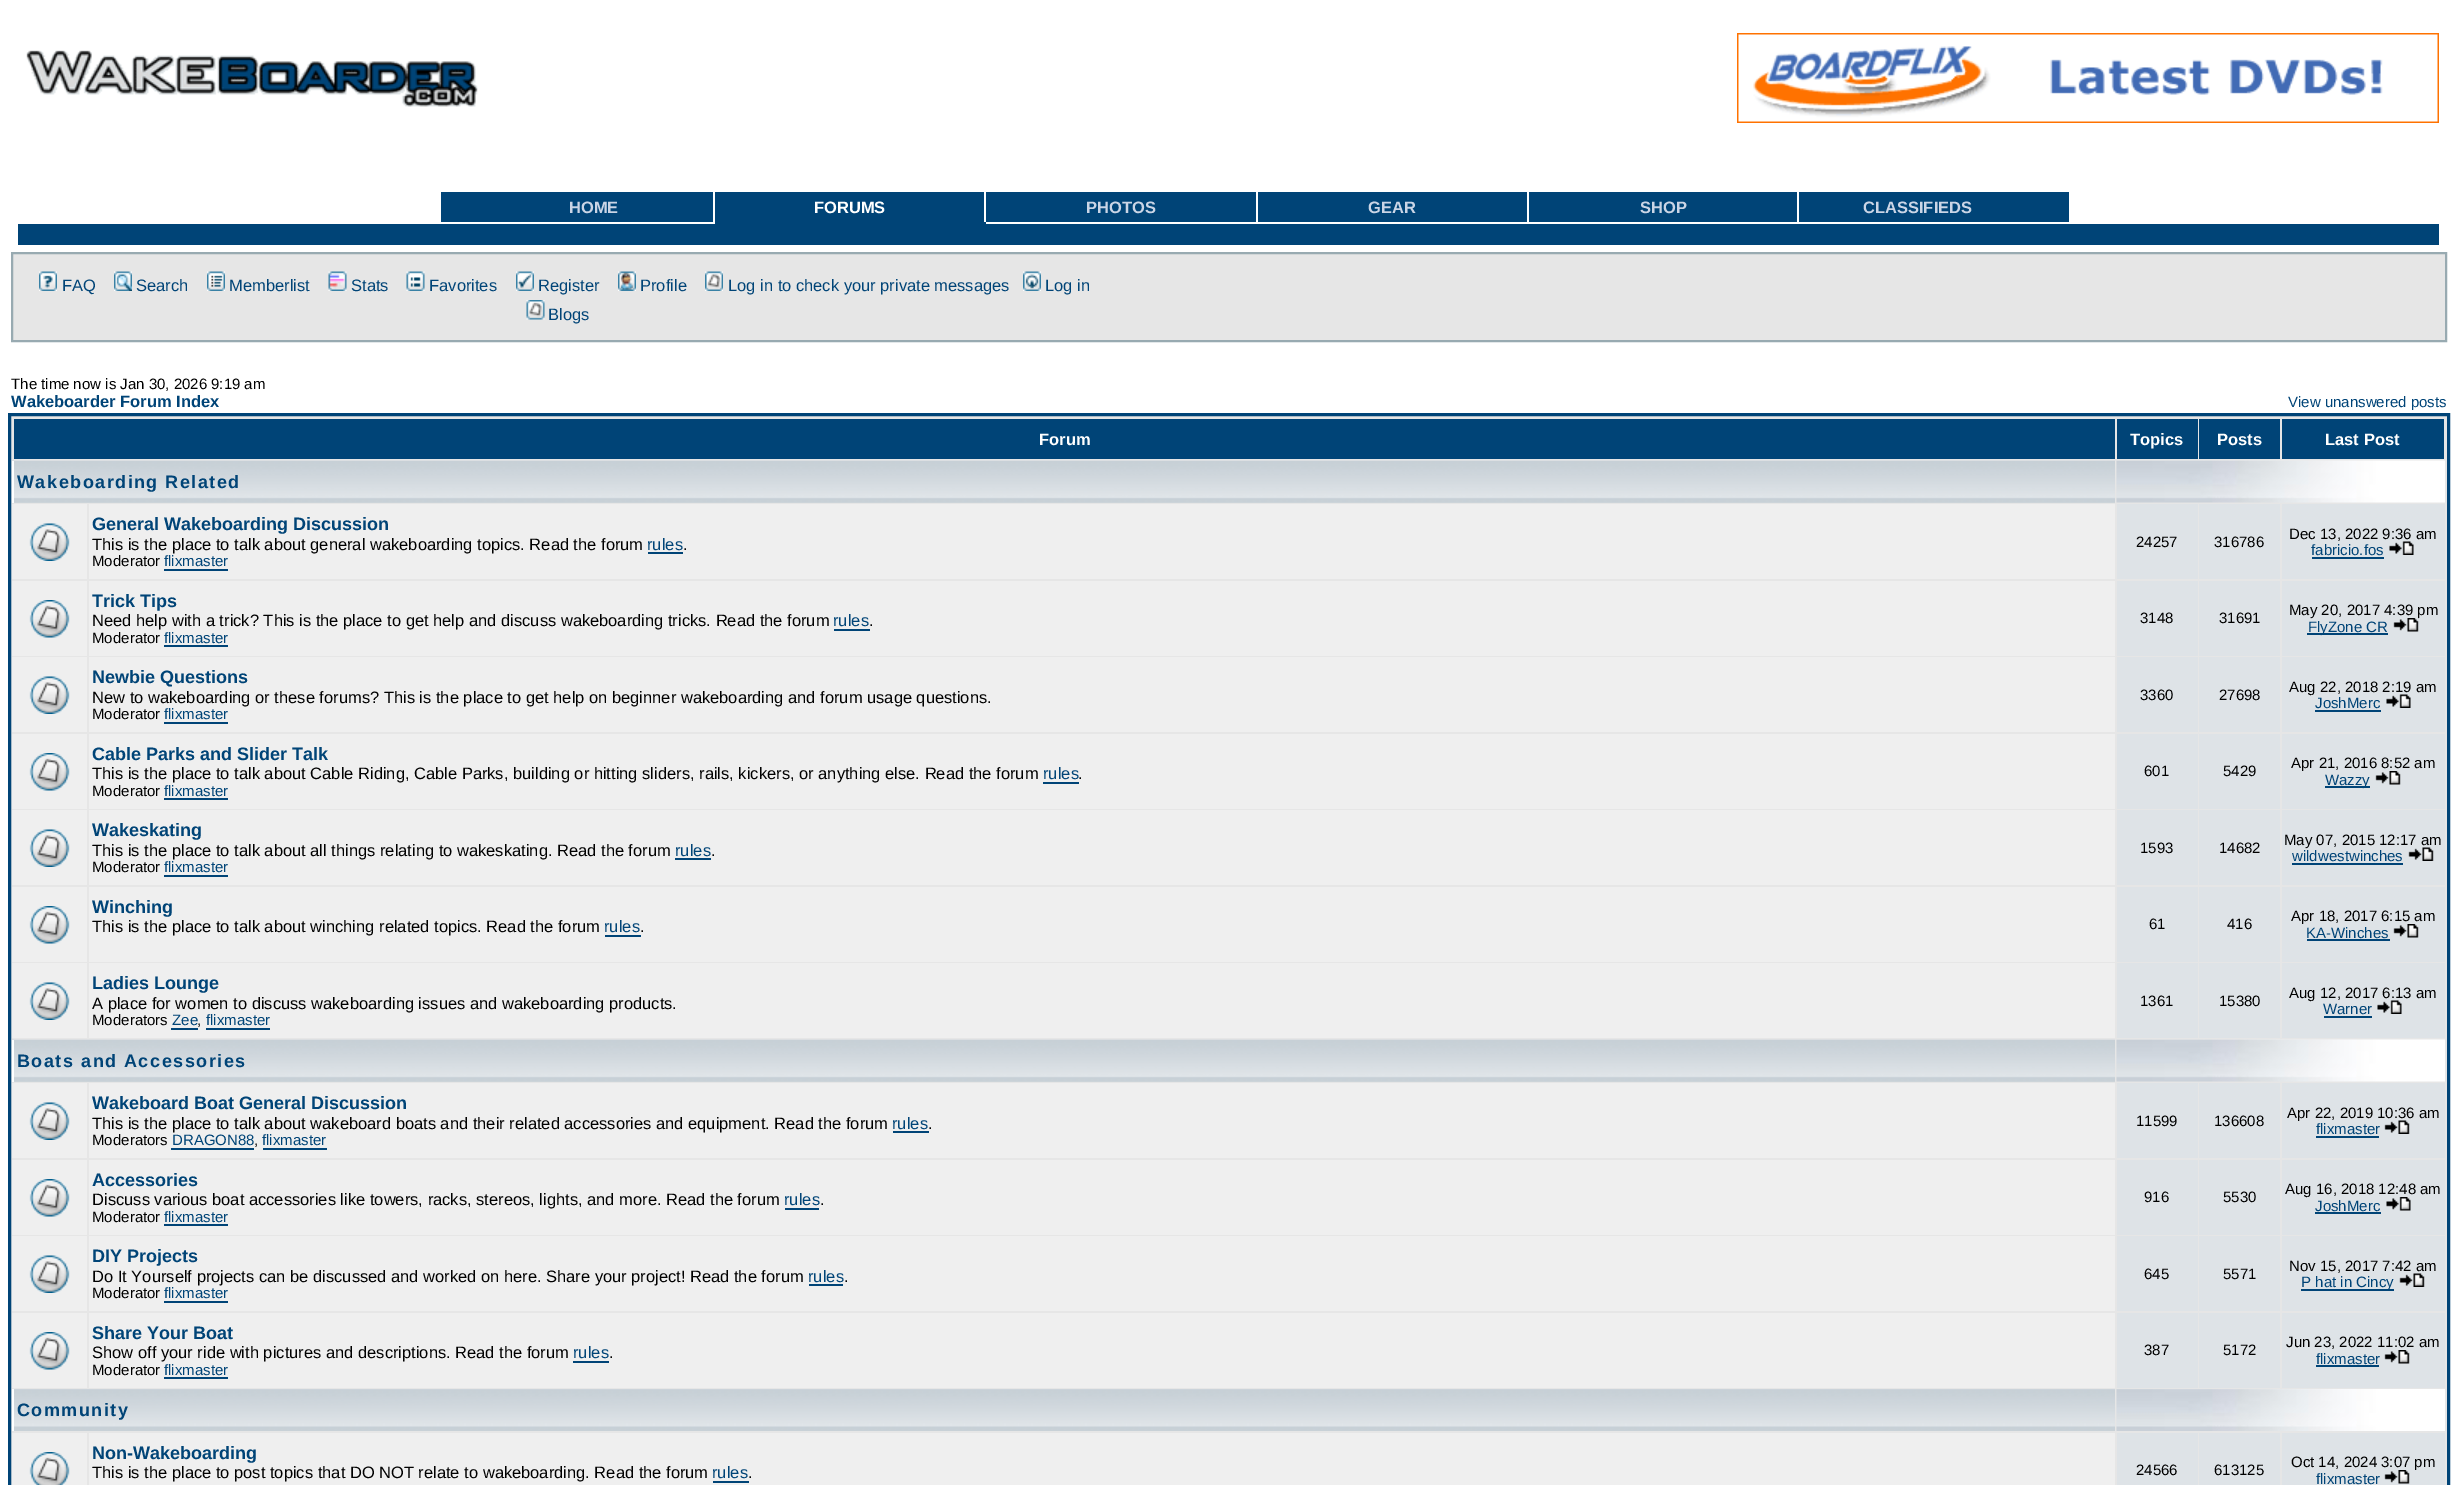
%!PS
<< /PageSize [2456 1485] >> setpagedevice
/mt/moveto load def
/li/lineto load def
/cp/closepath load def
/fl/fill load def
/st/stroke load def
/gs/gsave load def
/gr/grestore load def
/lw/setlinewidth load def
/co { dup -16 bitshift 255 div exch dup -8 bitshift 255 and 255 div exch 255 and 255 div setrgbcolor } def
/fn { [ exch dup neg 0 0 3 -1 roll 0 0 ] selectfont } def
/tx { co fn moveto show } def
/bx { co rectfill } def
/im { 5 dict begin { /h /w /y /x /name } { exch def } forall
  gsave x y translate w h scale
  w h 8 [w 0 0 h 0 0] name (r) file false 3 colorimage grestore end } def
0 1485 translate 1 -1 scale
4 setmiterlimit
0 0 2456 1485 16#FFFFFF bx
(media/1.raw) 26 50 452 57 im
(media/2.raw) 1737 33 702 90 im
441 192 272 30 16#004477 bx
715 192 271 32 16#004477 bx
986 192 270 30 16#004477 bx
984 192 2 30 16#FFFFFF bx
1258 192 269 30 16#004477 bx
1529 192 268 30 16#004477 bx
1799 192 270 30 16#004477 bx
18 224 2421 21 16#004477 bx
16#E6E6E6 co
12 253 mt 2446 253 li 2446 341 li 12 341 li cp gs fl gr
16#98AAB1 co
2 lw
st
(media/3.raw) 39 271 18 20 im
(media/4.raw) 114 271 18 20 im
(media/5.raw) 207 271 18 20 im
(media/6.raw) 328 271 19 20 im
(media/7.raw) 406 271 19 20 im
(media/8.raw) 516 271 18 20 im
(media/9.raw) 618 271 18 20 im
(media/10.raw) 705 271 18 20 im
(media/11.raw) 1023 271 18 20 im
(media/12.raw) 526 300 19 20 im
16#E6E6E6 co
9.5 414.5 mt 2448.5 414.5 li 2448.5 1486.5 li 9.5 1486.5 li cp gs fl gr
16#004477 co
3 lw
st
14 419 2101 40 16#004477 bx
2117 419 81 40 16#004477 bx
2199 419 81 40 16#004477 bx
2282 419 162 40 16#004477 bx
14 502 2101 1 16#D1D7DC bx
(media/13.raw) 12 460 2103 43 im
12 461 2 42 16#FFFFFF bx
(media/14.raw) 2116 460 329 43 im
12 504 75 75 16#EFEFEF bx
(media/15.raw) 29 523 41 38 im
89 504 2026 75 16#EFEFEF bx
648 552 35 2 16#004477 bx
164 569 64 2 16#004477 bx
2117 504 81 75 16#DEE3E7 bx
2199 504 81 75 16#DEE3E7 bx
2282 504 163 75 16#DEE3E7 bx
2312 557 72 2 16#004477 bx
(media/16.raw) 2389 541 25 14 im
12 581 75 75 16#EFEFEF bx
(media/17.raw) 29 600 41 38 im
89 581 2026 75 16#EFEFEF bx
834 629 36 2 16#004477 bx
164 645 64 2 16#004477 bx
2117 581 81 75 16#DEE3E7 bx
2199 581 81 75 16#DEE3E7 bx
2282 581 163 75 16#DEE3E7 bx
2307 633 81 2 16#004477 bx
12 657 75 75 16#EFEFEF bx
(media/15.raw) 29 676 41 38 im
89 657 2026 75 16#EFEFEF bx
164 722 64 2 16#004477 bx
2117 657 81 75 16#DEE3E7 bx
2199 657 81 75 16#DEE3E7 bx
2282 657 163 75 16#DEE3E7 bx
2315 710 66 2 16#004477 bx
12 734 75 75 16#EFEFEF bx
(media/17.raw) 29 753 41 38 im
89 734 2026 75 16#EFEFEF bx
1043 782 36 2 16#004477 bx
164 798 64 2 16#004477 bx
2117 734 81 75 16#DEE3E7 bx
2199 734 81 75 16#DEE3E7 bx
2282 734 163 75 16#DEE3E7 bx
2325 786 45 2 16#004477 bx
12 810 75 75 16#EFEFEF bx
(media/15.raw) 29 829 41 38 im
89 810 2026 75 16#EFEFEF bx
675 858 36 2 16#004477 bx
164 875 64 2 16#004477 bx
2117 810 81 75 16#DEE3E7 bx
2199 810 81 75 16#DEE3E7 bx
2282 810 163 75 16#DEE3E7 bx
2292 863 111 2 16#004477 bx
12 887 75 75 16#EFEFEF bx
(media/17.raw) 29 906 41 38 im
89 887 2026 75 16#EFEFEF bx
605 935 36 2 16#004477 bx
2117 887 81 75 16#DEE3E7 bx
2199 887 81 75 16#DEE3E7 bx
2282 887 163 75 16#DEE3E7 bx
2307 939 83 2 16#004477 bx
12 963 75 75 16#EFEFEF bx
(media/15.raw) 29 982 41 38 im
89 963 2026 75 16#EFEFEF bx
171 1028 27 2 16#004477 bx
206 1028 64 2 16#004477 bx
2117 963 81 75 16#DEE3E7 bx
2199 963 81 75 16#DEE3E7 bx
2282 963 163 75 16#DEE3E7 bx
2324 1016 48 2 16#004477 bx
14 1081 2101 1 16#D1D7DC bx
(media/13.raw) 12 1039 2103 43 im
12 1040 2 42 16#FFFFFF bx
(media/21.raw) 2116 1039 329 43 im
12 1083 75 75 16#EFEFEF bx
(media/15.raw) 29 1102 41 38 im
89 1083 2026 75 16#EFEFEF bx
893 1131 36 2 16#004477 bx
171 1148 83 2 16#004477 bx
263 1148 64 2 16#004477 bx
2117 1083 81 75 16#DEE3E7 bx
2199 1083 81 75 16#DEE3E7 bx
2282 1083 163 75 16#DEE3E7 bx
2316 1136 63 2 16#004477 bx
12 1160 75 75 16#EFEFEF bx
(media/17.raw) 29 1179 41 38 im
89 1160 2026 75 16#EFEFEF bx
785 1208 34 2 16#004477 bx
164 1224 64 2 16#004477 bx
2117 1160 81 75 16#DEE3E7 bx
2199 1160 81 75 16#DEE3E7 bx
2282 1160 163 75 16#DEE3E7 bx
2315 1212 66 2 16#004477 bx
12 1236 75 75 16#EFEFEF bx
(media/15.raw) 29 1255 41 38 im
89 1236 2026 75 16#EFEFEF bx
809 1284 34 2 16#004477 bx
164 1301 64 2 16#004477 bx
2117 1236 81 75 16#DEE3E7 bx
2199 1236 81 75 16#DEE3E7 bx
2282 1236 163 75 16#DEE3E7 bx
2301 1289 93 2 16#004477 bx
(media/20.raw) 2399 1273 26 14 im
12 1313 75 75 16#EFEFEF bx
(media/17.raw) 29 1332 41 38 im
89 1313 2026 75 16#EFEFEF bx
573 1361 36 2 16#004477 bx
164 1377 64 2 16#004477 bx
2117 1313 81 75 16#DEE3E7 bx
2199 1313 81 75 16#DEE3E7 bx
2282 1313 163 75 16#DEE3E7 bx
2316 1365 63 2 16#004477 bx
(media/19.raw) 2384 1350 26 14 im
(media/23.raw) 14 1389 2101 42 im
12 1389 2 42 16#FFFFFF bx
(media/24.raw) 2116 1389 329 42 im
12 1433 75 52 16#EFEFEF bx
(media/25.raw) 29 1452 41 33 im
89 1433 2026 52 16#EFEFEF bx
713 1481 36 2 16#004477 bx
2117 1433 81 52 16#DEE3E7 bx
2199 1433 81 52 16#DEE3E7 bx
2282 1433 163 52 16#DEE3E7 bx
(HOME) 569 213 /LiberationSans-Bold 16.5 16#CAD5E6 tx
(FORUMS) 814 213 /LiberationSans-Bold 16.5 16#FFFFFF tx
(PHOTOS) 1086 213 /LiberationSans-Bold 16.5 16#CAD5E6 tx
(GEAR) 1368 213 /LiberationSans-Bold 16.5 16#CAD5E6 tx
(SHOP) 1640 213 /LiberationSans-Bold 16.5 16#CAD5E6 tx
(CLASSIFIEDS) 1863 213 /LiberationSans-Bold 16.5 16#CAD5E6 tx
(FAQ) 62 291 /LiberationSans-Regular 16.5 16#004477 tx
(Search) 136 291 /LiberationSans-Regular 16.5 16#004477 tx
(Memberlist) 229 291 /LiberationSans-Regular 16.5 16#004477 tx
(Stats) 351 291 /LiberationSans-Regular 16.5 16#004477 tx
(Favorites) 429 291 /LiberationSans-Regular 16.5 16#004477 tx
(Register) 538 291 /LiberationSans-Regular 16.5 16#004477 tx
(Profile) 640 291 /LiberationSans-Regular 16.5 16#004477 tx
(Log in to check your private messages) 728 291 /LiberationSans-Regular 16.5 16#004477 tx
(Log in) 1045 291 /LiberationSans-Regular 16.5 16#004477 tx
(Blogs) 548 320 /LiberationSans-Regular 16.5 16#004477 tx
(The time now is Jan 30, 2026 9:19 am) 11 389 /LiberationSans-Regular 15 16#000000 tx
(Wakeboarder Forum Index) 11 407 /LiberationSans-Bold 16.5 16#004477 tx
(View unanswered posts) 2288 407 /LiberationSans-Regular 15 16#004477 tx
(Forum) 1039 445 /LiberationSans-Bold 16.5 16#FFFFFF tx
(Topics) 2130 445 /LiberationSans-Bold 16.5 16#FFFFFF tx
(Posts) 2217 445 /LiberationSans-Bold 16.5 16#FFFFFF tx
(Last Post) 2325 445 /LiberationSans-Bold 16.5 16#FFFFFF tx
/LiberationSans-Bold 18 fn
16#004477 co
17 488 mt 1.5 0 (Wakeboarding Related) ashow
(General Wakeboarding Discussion) 92 530 /LiberationSans-Bold 18 16#004477 tx
(This is the place to talk about general wakeboarding topics. Read the forum) 92 550 /LiberationSans-Regular 16.5 16#000000 tx
(rules) 647 550 /LiberationSans-Regular 16.5 16#004477 tx
(.) 683 550 /LiberationSans-Regular 16.5 16#000000 tx
(Moderator) 92 566 /LiberationSans-Regular 15 16#000000 tx
(flixmaster) 164 566 /LiberationSans-Regular 15 16#004477 tx
(24257) 2136 547 /LiberationSans-Regular 15 16#000000 tx
(316786) 2214 547 /LiberationSans-Regular 15 16#000000 tx
(Dec 13, 2022 9:36 am) 2289 539 /LiberationSans-Regular 15 16#000000 tx
(fabricio.fos) 2311 555 /LiberationSans-Regular 15 16#004477 tx
(Trick Tips) 92 607 /LiberationSans-Bold 18 16#004477 tx
(Need help with a trick? This is the place to get help and discuss wakeboarding tricks. Read the forum) 92 626 /LiberationSans-Regular 16.5 16#000000 tx
(rules) 833 626 /LiberationSans-Regular 16.5 16#004477 tx
(.) 869 626 /LiberationSans-Regular 16.5 16#000000 tx
(Moderator) 92 643 /LiberationSans-Regular 15 16#000000 tx
(flixmaster) 164 643 /LiberationSans-Regular 15 16#004477 tx
(3148) 2140 623 /LiberationSans-Regular 15 16#000000 tx
(31691) 2219 623 /LiberationSans-Regular 15 16#000000 tx
(May 20, 2017 4:39 pm) 2289 615 /LiberationSans-Regular 15 16#000000 tx
(FlyZone CR) 2308 632 /LiberationSans-Regular 15 16#004477 tx
(media/18.raw) 2393 618 26 14 im
(Newbie Questions) 92 683 /LiberationSans-Bold 18 16#004477 tx
(New to wakeboarding or these forums? This is the place to get help on beginner wakeboarding and forum usage questions.) 92 703 /LiberationSans-Regular 16.5 16#000000 tx
(Moderator) 92 719 /LiberationSans-Regular 15 16#000000 tx
(flixmaster) 164 719 /LiberationSans-Regular 15 16#004477 tx
(3360) 2140 700 /LiberationSans-Regular 15 16#000000 tx
(27698) 2219 700 /LiberationSans-Regular 15 16#000000 tx
(Aug 22, 2018 2:19 am) 2289 692 /LiberationSans-Regular 15 16#000000 tx
(JoshMerc) 2315 708 /LiberationSans-Regular 15 16#004477 tx
(media/16.raw) 2386 694 25 14 im
(Cable Parks and Slider Talk) 92 760 /LiberationSans-Bold 18 16#004477 tx
(This is the place to talk about Cable Riding, Cable Parks, building or hitting sliders, rails, kickers, or anything else. Read the forum) 92 779 /LiberationSans-Regular 16.5 16#000000 tx
(rules) 1043 779 /LiberationSans-Regular 16.5 16#004477 tx
(.) 1078 779 /LiberationSans-Regular 16.5 16#000000 tx
(Moderator) 92 796 /LiberationSans-Regular 15 16#000000 tx
(flixmaster) 164 796 /LiberationSans-Regular 15 16#004477 tx
(601) 2144 776 /LiberationSans-Regular 15 16#000000 tx
(5429) 2223 776 /LiberationSans-Regular 15 16#000000 tx
(Apr 21, 2016 8:52 am) 2291 768 /LiberationSans-Regular 15 16#000000 tx
(Wazzy) 2325 785 /LiberationSans-Regular 15 16#004477 tx
(media/19.raw) 2375 771 26 14 im
(Wakeskating) 92 836 /LiberationSans-Bold 18 16#004477 tx
(This is the place to talk about all things relating to wakeskating. Read the forum) 92 856 /LiberationSans-Regular 16.5 16#000000 tx
(rules) 675 856 /LiberationSans-Regular 16.5 16#004477 tx
(.) 711 856 /LiberationSans-Regular 16.5 16#000000 tx
(Moderator) 92 872 /LiberationSans-Regular 15 16#000000 tx
(flixmaster) 164 872 /LiberationSans-Regular 15 16#004477 tx
(1593) 2140 853 /LiberationSans-Regular 15 16#000000 tx
(14682) 2219 853 /LiberationSans-Regular 15 16#000000 tx
(May 07, 2015 12:17 am) 2284 845 /LiberationSans-Regular 15 16#000000 tx
(wildwestwinches) 2292 861 /LiberationSans-Regular 15 16#004477 tx
(media/20.raw) 2408 847 26 14 im
(Winching) 92 913 /LiberationSans-Bold 18 16#004477 tx
(This is the place to talk about winching related topics. Read the forum) 92 932 /LiberationSans-Regular 16.5 16#000000 tx
(rules) 604 932 /LiberationSans-Regular 16.5 16#004477 tx
(.) 640 932 /LiberationSans-Regular 16.5 16#000000 tx
(61) 2149 929 /LiberationSans-Regular 15 16#000000 tx
(416) 2227 929 /LiberationSans-Regular 15 16#000000 tx
(Apr 18, 2017 6:15 am) 2291 921 /LiberationSans-Regular 15 16#000000 tx
(KA-Winches) 2306 938 /LiberationSans-Regular 15 16#004477 tx
(media/19.raw) 2393 924 26 14 im
(Ladies Lounge) 92 989 /LiberationSans-Bold 18 16#004477 tx
(A place for women to discuss wakeboarding issues and wakeboarding products.) 92 1009 /LiberationSans-Regular 16.5 16#000000 tx
(Moderators) 92 1025 /LiberationSans-Regular 15 16#000000 tx
(Zee) 172 1025 /LiberationSans-Regular 15 16#004477 tx
(,) 197 1025 /LiberationSans-Regular 15 16#000000 tx
(flixmaster) 206 1025 /LiberationSans-Regular 15 16#004477 tx
(1361) 2140 1006 /LiberationSans-Regular 15 16#000000 tx
(15380) 2219 1006 /LiberationSans-Regular 15 16#000000 tx
(Aug 12, 2017 6:13 am) 2289 998 /LiberationSans-Regular 15 16#000000 tx
(Warner) 2323 1014 /LiberationSans-Regular 15 16#004477 tx
(media/16.raw) 2377 1000 25 14 im
/LiberationSans-Bold 18 fn
17 1067 mt 1.5 0 (Boats and Accessories) ashow
(Wakeboard Boat General Discussion) 92 1109 /LiberationSans-Bold 18 16#004477 tx
(This is the place to talk about wakeboard boats and their related accessories and equipment. Read the forum) 92 1129 /LiberationSans-Regular 16.5 16#000000 tx
(rules) 892 1129 /LiberationSans-Regular 16.5 16#004477 tx
(.) 928 1129 /LiberationSans-Regular 16.5 16#000000 tx
(Moderators) 92 1145 /LiberationSans-Regular 15 16#000000 tx
(DRAGON88) 172 1145 /LiberationSans-Regular 15 16#004477 tx
(,) 254 1145 /LiberationSans-Regular 15 16#000000 tx
(flixmaster) 262 1145 /LiberationSans-Regular 15 16#004477 tx
(11599) 2136 1126 /LiberationSans-Regular 15 16#000000 tx
(136608) 2214 1126 /LiberationSans-Regular 15 16#000000 tx
(Apr 22, 2019 10:36 am) 2287 1118 /LiberationSans-Regular 15 16#000000 tx
(flixmaster) 2316 1134 /LiberationSans-Regular 15 16#004477 tx
(media/20.raw) 2384 1120 26 14 im
(Accessories) 92 1186 /LiberationSans-Bold 18 16#004477 tx
(Discuss various boat accessories like towers, racks, stereos, lights, and more. Read the forum) 92 1205 /LiberationSans-Regular 16.5 16#000000 tx
(rules) 784 1205 /LiberationSans-Regular 16.5 16#004477 tx
(.) 820 1205 /LiberationSans-Regular 16.5 16#000000 tx
(Moderator) 92 1222 /LiberationSans-Regular 15 16#000000 tx
(flixmaster) 164 1222 /LiberationSans-Regular 15 16#004477 tx
(916) 2144 1202 /LiberationSans-Regular 15 16#000000 tx
(5530) 2223 1202 /LiberationSans-Regular 15 16#000000 tx
(Aug 16, 2018 12:48 am) 2285 1194 /LiberationSans-Regular 15 16#000000 tx
(JoshMerc) 2315 1211 /LiberationSans-Regular 15 16#004477 tx
(media/22.raw) 2386 1197 25 14 im
(DIY Projects) 92 1262 /LiberationSans-Bold 18 16#004477 tx
(Do It Yourself projects can be discussed and worked on here. Share your project! Read the forum) 92 1282 /LiberationSans-Regular 16.5 16#000000 tx
(rules) 808 1282 /LiberationSans-Regular 16.5 16#004477 tx
(.) 844 1282 /LiberationSans-Regular 16.5 16#000000 tx
(Moderator) 92 1298 /LiberationSans-Regular 15 16#000000 tx
(flixmaster) 164 1298 /LiberationSans-Regular 15 16#004477 tx
(645) 2144 1279 /LiberationSans-Regular 15 16#000000 tx
(5571) 2223 1279 /LiberationSans-Regular 15 16#000000 tx
(Nov 15, 2017 7:42 am) 2289 1271 /LiberationSans-Regular 15 16#000000 tx
(P hat in Cincy) 2301 1287 /LiberationSans-Regular 15 16#004477 tx
(Share Your Boat) 92 1339 /LiberationSans-Bold 18 16#004477 tx
(Show off your ride with pictures and descriptions. Read the forum) 92 1358 /LiberationSans-Regular 16.5 16#000000 tx
(rules) 573 1358 /LiberationSans-Regular 16.5 16#004477 tx
(.) 609 1358 /LiberationSans-Regular 16.5 16#000000 tx
(Moderator) 92 1375 /LiberationSans-Regular 15 16#000000 tx
(flixmaster) 164 1375 /LiberationSans-Regular 15 16#004477 tx
(387) 2144 1355 /LiberationSans-Regular 15 16#000000 tx
(5172) 2223 1355 /LiberationSans-Regular 15 16#000000 tx
(Jun 23, 2022 11:02 am) 2286 1347 /LiberationSans-Regular 15 16#000000 tx
(flixmaster) 2316 1364 /LiberationSans-Regular 15 16#004477 tx
/LiberationSans-Bold 18 fn
17 1416 mt 1.5 0 (Community) ashow
(Non-Wakeboarding) 92 1459 /LiberationSans-Bold 18 16#004477 tx
(This is the place to post topics that DO NOT relate to wakeboarding. Read the forum) 92 1478 /LiberationSans-Regular 16.5 16#000000 tx
(rules) 712 1478 /LiberationSans-Regular 16.5 16#004477 tx
(.) 748 1478 /LiberationSans-Regular 16.5 16#000000 tx
(24566) 2136 1475 /LiberationSans-Regular 15 16#000000 tx
(613125) 2214 1475 /LiberationSans-Regular 15 16#000000 tx
(Oct 14, 2024 3:07 pm) 2291 1467 /LiberationSans-Regular 15 16#000000 tx
(flixmaster) 2316 1484 /LiberationSans-Regular 15 16#004477 tx
(media/19.raw) 2384 1470 26 14 im
showpage
